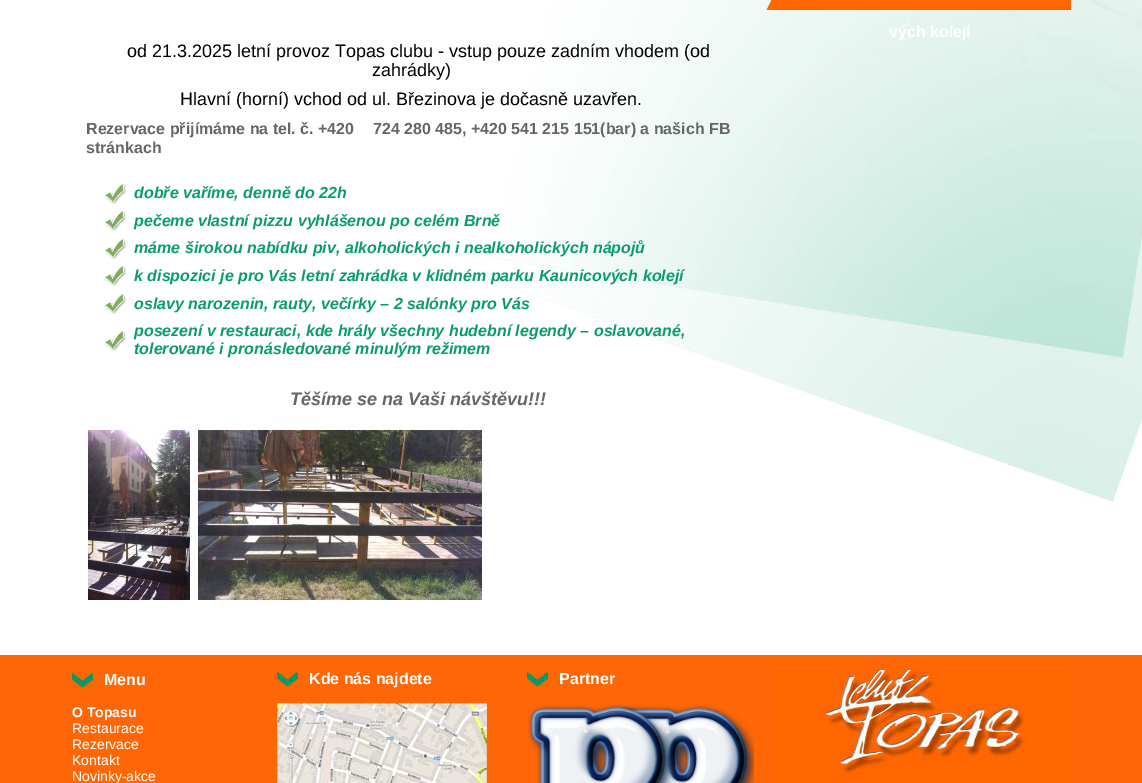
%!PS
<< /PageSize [1142 783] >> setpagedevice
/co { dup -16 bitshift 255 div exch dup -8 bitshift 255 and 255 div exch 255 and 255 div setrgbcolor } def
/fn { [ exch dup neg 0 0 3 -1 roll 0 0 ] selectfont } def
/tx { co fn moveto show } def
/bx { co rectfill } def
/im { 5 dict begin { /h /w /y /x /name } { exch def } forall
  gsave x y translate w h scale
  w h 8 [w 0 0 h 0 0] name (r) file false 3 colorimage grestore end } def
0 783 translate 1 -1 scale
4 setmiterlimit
0 0 1142 783 16#FFFFFF bx
(media/1.raw) 449 0 693 506 im
(media/2.raw) 766 0 305 10 im
(media/3.raw) 104 184 22 20 im
(media/3.raw) 104 211 22 20 im
(media/3.raw) 104 239 22 20 im
(media/3.raw) 104 266 22 20 im
(media/3.raw) 104 294 22 20 im
(media/3.raw) 104 331 22 20 im
(media/4.raw) 88 430 102 170 im
(media/5.raw) 198 430 284 170 im
0 655 1142 128 16#FF6605 bx
(media/6.raw) 776 670 295 113 im
(media/7.raw) 72 672 21 16 im
(media/7.raw) 277 671 21 16 im
(media/8.raw) 277 703 210 80 im
(media/7.raw) 527 671 21 16 im
(media/9.raw) 528 704 226 79 im
(vých kolejí) 889 37 /LiberationSans-Bold 16 16#FFFFFF tx
(od 21.3.2025 letní provoz Topas clubu - vstup pouze zadním vhodem \(od) 127 57 /LiberationSans-Regular 18 16#000000 tx
(zahrádky\)) 372 76 /LiberationSans-Regular 18 16#000000 tx
(Hlavní \(horní\) vchod od ul. Březinova je dočasně uzavřen.) 180 105 /LiberationSans-Regular 18 16#000000 tx
(Rezervace přijímáme na tel. č. +420) 86 134 /LiberationSans-Bold 16 16#666666 tx
(724 280 485, +420 541 215 151\(bar\) a našich FB) 373 134 /LiberationSans-Bold 16 16#666666 tx
(stránkach) 86 153 /LiberationSans-Bold 16 16#666666 tx
(dobře vaříme, denně do 22h) 134 198 /LiberationSans-BoldItalic 16 16#0A9C6B tx
(pečeme vlastní pizzu vyhlášenou po celém Brně) 134 226 /LiberationSans-BoldItalic 16 16#0A9C6B tx
(máme širokou nabídku piv, alkoholických i nealkoholických nápojů) 134 253 /LiberationSans-BoldItalic 16 16#0A9C6B tx
(k dispozici je pro Vás letní zahrádka v klidném parku Kaunicových kolejí) 134 281 /LiberationSans-BoldItalic 16 16#0A9C6B tx
(oslavy narozenin, rauty, večírky – 2 salónky pro Vás) 134 309 /LiberationSans-BoldItalic 16 16#0A9C6B tx
(posezení v restauraci, kde hrály všechny hudební legendy – oslavované,) 134 336 /LiberationSans-BoldItalic 16 16#0A9C6B tx
(tolerované i pronásledované minulým režimem) 134 354 /LiberationSans-BoldItalic 16 16#0A9C6B tx
(Těšíme se na Vaši návštěvu!!!) 290 405 /LiberationSans-BoldItalic 18 16#666666 tx
(Menu) 104 685 /LiberationSans-Bold 16 16#FFFFFF tx
(O Topasu) 72 717 /LiberationSans-Bold 14 16#FFFFFF tx
(Restaurace) 72 733 /LiberationSans-Regular 14 16#FFFFFF tx
(Rezervace) 72 749 /LiberationSans-Regular 14 16#FFFFFF tx
(Kontakt) 72 765 /LiberationSans-Regular 14 16#FFFFFF tx
(Novinky-akce) 72 781 /LiberationSans-Regular 14 16#FFFFFF tx
(Kde nás najdete) 309 684 /LiberationSans-Bold 16 16#FFFFFF tx
(Partner) 559 684 /LiberationSans-Bold 16 16#FFFFFF tx
showpage
